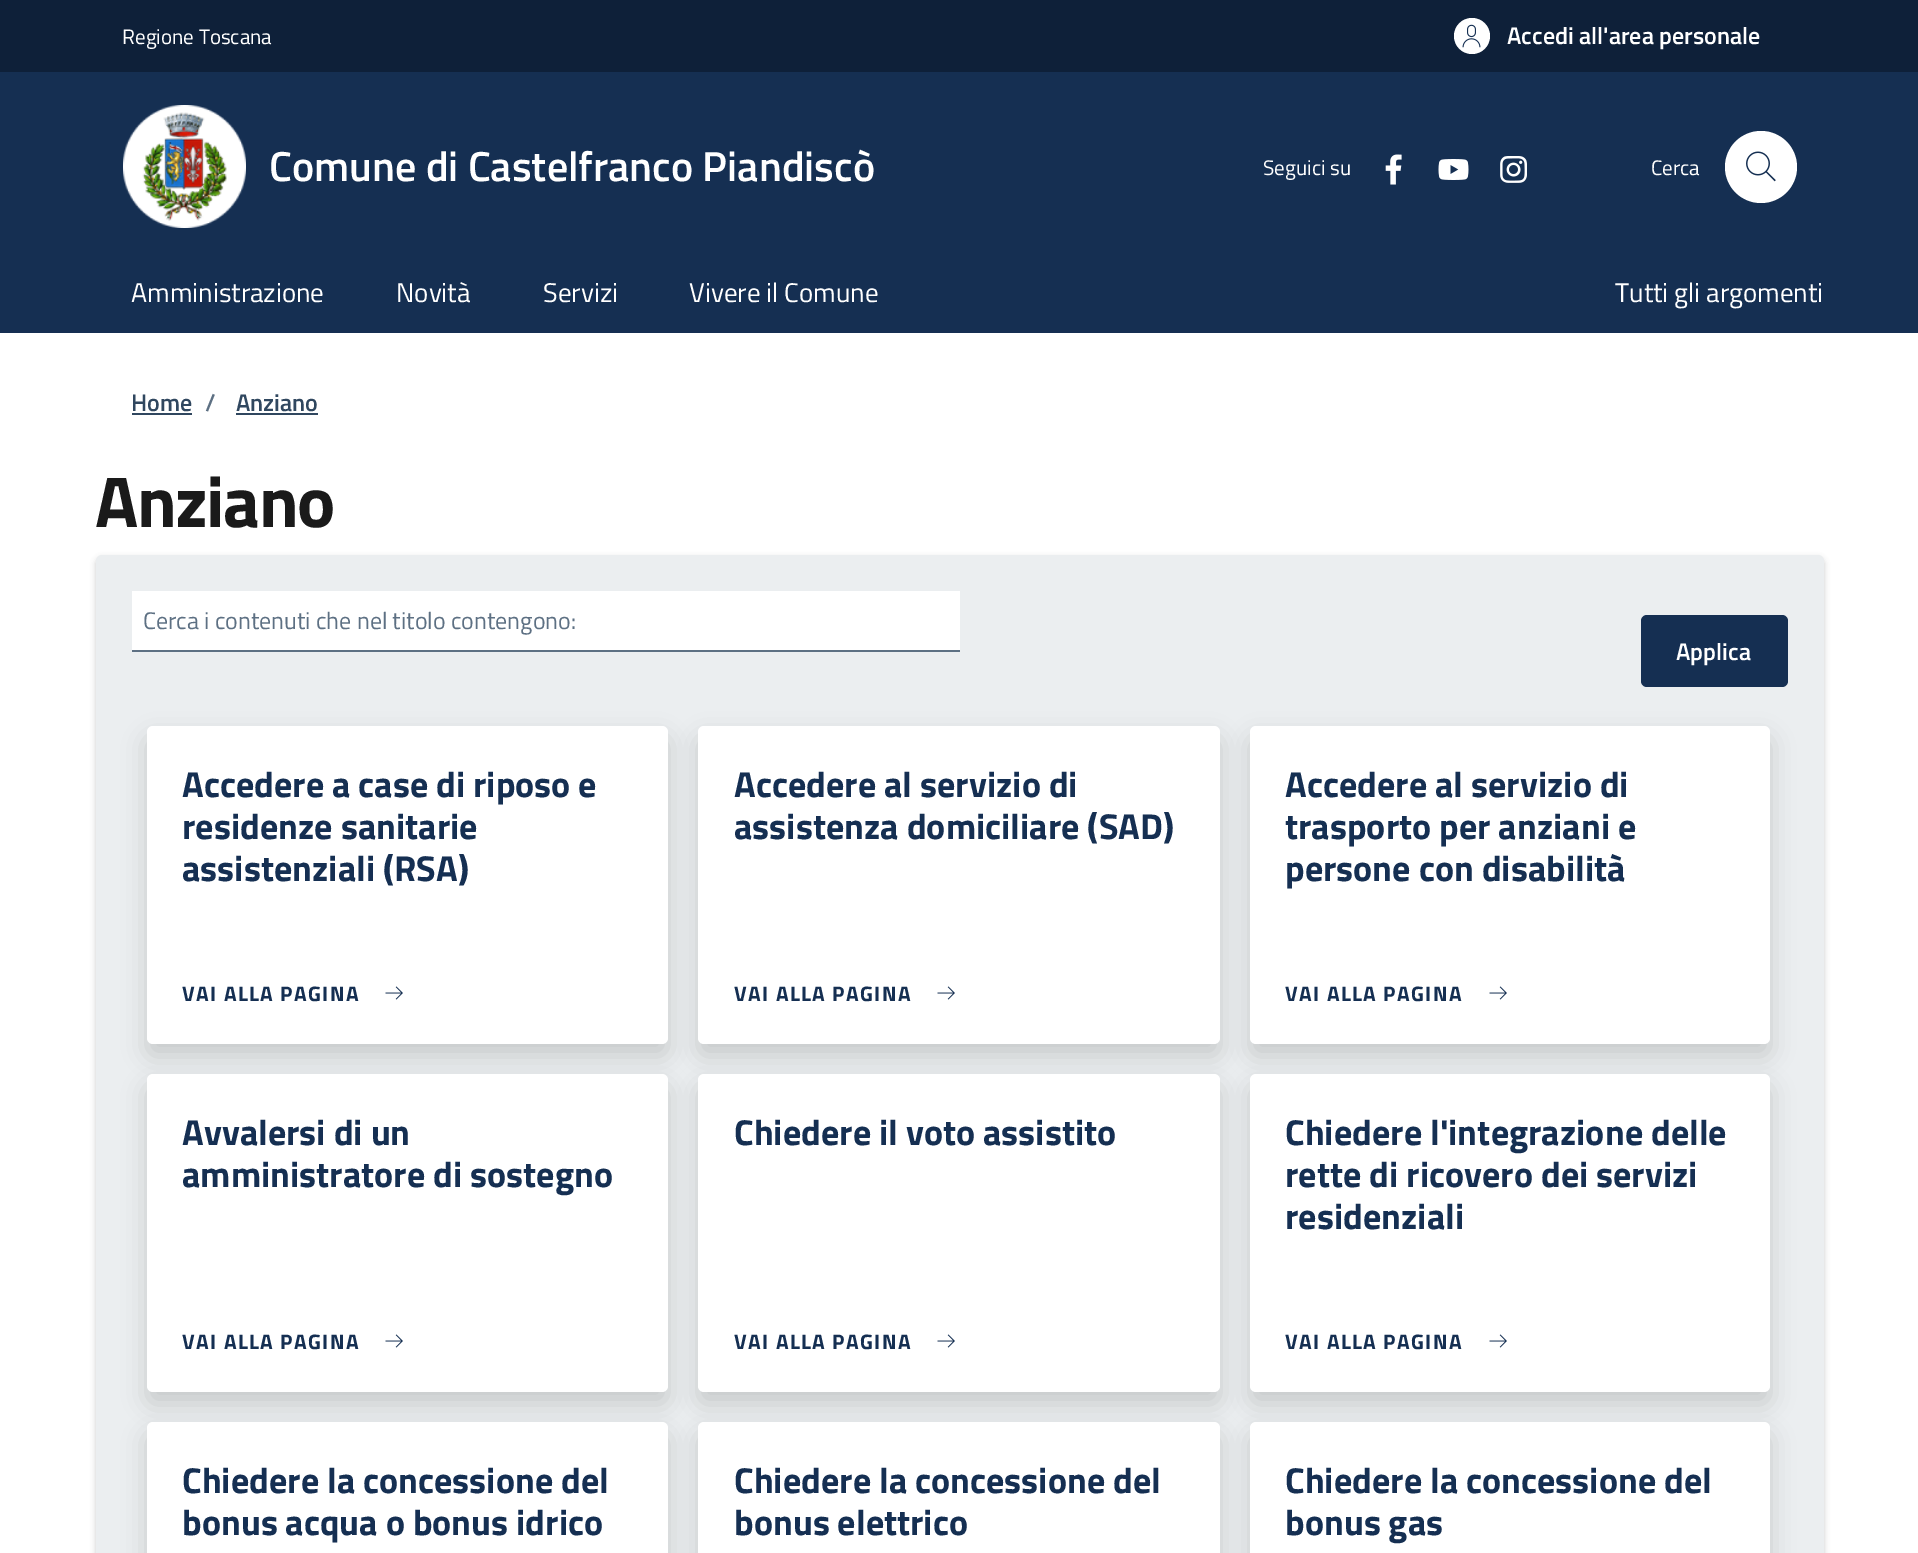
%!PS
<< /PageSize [1918 1553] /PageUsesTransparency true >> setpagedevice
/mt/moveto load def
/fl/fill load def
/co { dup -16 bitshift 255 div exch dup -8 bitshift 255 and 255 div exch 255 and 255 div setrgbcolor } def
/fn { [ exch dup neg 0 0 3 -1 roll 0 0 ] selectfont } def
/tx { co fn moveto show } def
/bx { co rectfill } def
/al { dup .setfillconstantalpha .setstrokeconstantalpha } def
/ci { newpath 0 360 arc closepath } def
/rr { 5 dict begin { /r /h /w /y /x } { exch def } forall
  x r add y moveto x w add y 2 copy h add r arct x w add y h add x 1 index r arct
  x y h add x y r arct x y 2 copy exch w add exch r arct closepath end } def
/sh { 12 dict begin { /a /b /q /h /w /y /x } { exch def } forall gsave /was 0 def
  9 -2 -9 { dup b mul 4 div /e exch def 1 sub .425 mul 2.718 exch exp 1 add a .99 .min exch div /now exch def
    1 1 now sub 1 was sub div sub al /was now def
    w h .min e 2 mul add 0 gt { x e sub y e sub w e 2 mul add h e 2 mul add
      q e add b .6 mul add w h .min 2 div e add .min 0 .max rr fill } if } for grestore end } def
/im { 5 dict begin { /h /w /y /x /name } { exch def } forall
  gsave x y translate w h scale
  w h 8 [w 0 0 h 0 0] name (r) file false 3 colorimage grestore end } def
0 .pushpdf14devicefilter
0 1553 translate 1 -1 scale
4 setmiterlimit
0 0 1918 1553 16#FFFFFF bx
0 0 1918 72 16#0E2039 bx
16#FFFFFF co
1472 36 18 ci fl
(media/1.raw) 1462 24 19 24 im
0 72 1918 261 16#152F52 bx
(media/2.raw) 123 105 123 123 im
(media/3.raw) 1385 154 17 31 im
(media/4.raw) 1438 159 31 21 im
(media/5.raw) 1500 156 27 27 im
16#FFFFFF co
1761 167 36 ci fl
(media/6.raw) 1746 151 30 31 im
132 413 60 2 16#30475F bx
236 413 82 2 16#30475F bx
16#000000 co
96 558 1728 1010 6 3 .2 sh
16#EBEEF0 co
96 555 1728 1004 6 rr fl
132 591 828 59 16#FFFFFF bx
132 650 828 2 16#5D7083 bx
16#152F52 co
1641 615 147 72 6 rr fl
16#000000 co
147 738 521 318 6 12 .15 sh
16#FFFFFF co
147 726 521 318 6 rr fl
(media/7.raw) 385 986 18 14 im
16#000000 co
698 738 522 318 6 12 .15 sh
16#FFFFFF co
698 726 522 318 6 rr fl
(media/7.raw) 937 986 18 14 im
16#000000 co
1250 738 520 318 6 12 .15 sh
16#FFFFFF co
1250 726 520 318 6 rr fl
(media/7.raw) 1489 986 18 14 im
16#000000 co
147 1086 521 318 6 12 .15 sh
16#FFFFFF co
147 1074 521 318 6 rr fl
(media/7.raw) 385 1334 18 14 im
16#000000 co
698 1086 522 318 6 12 .15 sh
16#FFFFFF co
698 1074 522 318 6 rr fl
(media/7.raw) 937 1334 18 14 im
16#000000 co
1250 1086 520 318 6 12 .15 sh
16#FFFFFF co
1250 1074 520 318 6 rr fl
(media/7.raw) 1489 1334 18 14 im
16#000000 co
147 1434 521 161 6 12 .15 sh
16#FFFFFF co
147 1422 521 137 6 rr fl
16#000000 co
698 1434 522 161 6 12 .15 sh
16#FFFFFF co
698 1422 522 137 6 rr fl
16#000000 co
1250 1434 520 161 6 12 .15 sh
16#FFFFFF co
1250 1422 520 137 6 rr fl
(Regione Toscana) 122 44 /TitilliumWeb-Regular 21 16#FFFFFF tx
(Accedi all'area personale) 1507 44 /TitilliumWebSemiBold-SemiBold 24 16#FFFFFF tx
(Comune di Castelfranco Piandiscò) 269 181 /TitilliumWebSemiBold-SemiBold 42 16#FFFFFF tx
(Seguici su) 1263 175 /TitilliumWeb-Regular 21 16#FFFFFF tx
(Cerca) 1651 175 /TitilliumWeb-Regular 21 16#FFFFFF tx
(Amministrazione) 131 302 /TitilliumWeb-Regular 27 16#FFFFFF tx
(Novità) 396 302 /TitilliumWeb-Regular 27 16#FFFFFF tx
(Servizi) 543 302 /TitilliumWeb-Regular 27 16#FFFFFF tx
(Vivere il Comune) 689 302 /TitilliumWeb-Regular 27 16#FFFFFF tx
(Tutti gli argomenti) 1615 302 /TitilliumWeb-Regular 27 16#FFFFFF tx
(Home) 131 411 /TitilliumWebSemiBold-SemiBold 24 16#30475F tx
(/) 205 411 /TitilliumWebSemiBold-SemiBold 24 16#5D7083 tx
(Anziano) 236 411 /TitilliumWebSemiBold-SemiBold 24 16#30475F tx
/TitilliumWeb-Bold 72 fn
16#1A1A1A co
95 527 mt -1.5 0 (Anziano) ashow
(Cerca i contenuti che nel titolo contengono:) 143 629 /TitilliumWeb-Regular 24 16#5D7083 tx
(Applica) 1676 660 /TitilliumWebSemiBold-SemiBold 24 16#FFFFFF tx
(Accedere a case di riposo e) 182 797 /TitilliumWeb-Bold 36 16#152F52 tx
(residenze sanitarie) 182 839 /TitilliumWeb-Bold 36 16#152F52 tx
(assistenziali \(RSA\)) 182 881 /TitilliumWeb-Bold 36 16#152F52 tx
/TitilliumWeb-Bold 21 fn
182 1001 mt 1.4 0 (VAI ALLA PAGINA) ashow
(Accedere al servizio di) 734 797 /TitilliumWeb-Bold 36 16#152F52 tx
(assistenza domiciliare \(SAD\)) 734 839 /TitilliumWeb-Bold 36 16#152F52 tx
/TitilliumWeb-Bold 21 fn
734 1001 mt 1.4 0 (VAI ALLA PAGINA) ashow
(Accedere al servizio di) 1285 797 /TitilliumWeb-Bold 36 16#152F52 tx
(trasporto per anziani e) 1285 839 /TitilliumWeb-Bold 36 16#152F52 tx
(persone con disabilità) 1285 881 /TitilliumWeb-Bold 36 16#152F52 tx
/TitilliumWeb-Bold 21 fn
1285 1001 mt 1.4 0 (VAI ALLA PAGINA) ashow
(Avvalersi di un) 182 1145 /TitilliumWeb-Bold 36 16#152F52 tx
(amministratore di sostegno) 182 1187 /TitilliumWeb-Bold 36 16#152F52 tx
/TitilliumWeb-Bold 21 fn
182 1349 mt 1.4 0 (VAI ALLA PAGINA) ashow
(Chiedere il voto assistito) 734 1145 /TitilliumWeb-Bold 36 16#152F52 tx
/TitilliumWeb-Bold 21 fn
734 1349 mt 1.4 0 (VAI ALLA PAGINA) ashow
(Chiedere l'integrazione delle) 1285 1145 /TitilliumWeb-Bold 36 16#152F52 tx
(rette di ricovero dei servizi) 1285 1187 /TitilliumWeb-Bold 36 16#152F52 tx
(residenziali) 1285 1229 /TitilliumWeb-Bold 36 16#152F52 tx
/TitilliumWeb-Bold 21 fn
1285 1349 mt 1.4 0 (VAI ALLA PAGINA) ashow
(Chiedere la concessione del) 182 1493 /TitilliumWeb-Bold 36 16#152F52 tx
(bonus acqua o bonus idrico) 182 1535 /TitilliumWeb-Bold 36 16#152F52 tx
(Chiedere la concessione del) 734 1493 /TitilliumWeb-Bold 36 16#152F52 tx
(bonus elettrico) 734 1535 /TitilliumWeb-Bold 36 16#152F52 tx
(Chiedere la concessione del) 1285 1493 /TitilliumWeb-Bold 36 16#152F52 tx
(bonus gas) 1285 1535 /TitilliumWeb-Bold 36 16#152F52 tx
.poppdf14devicefilter showpage
